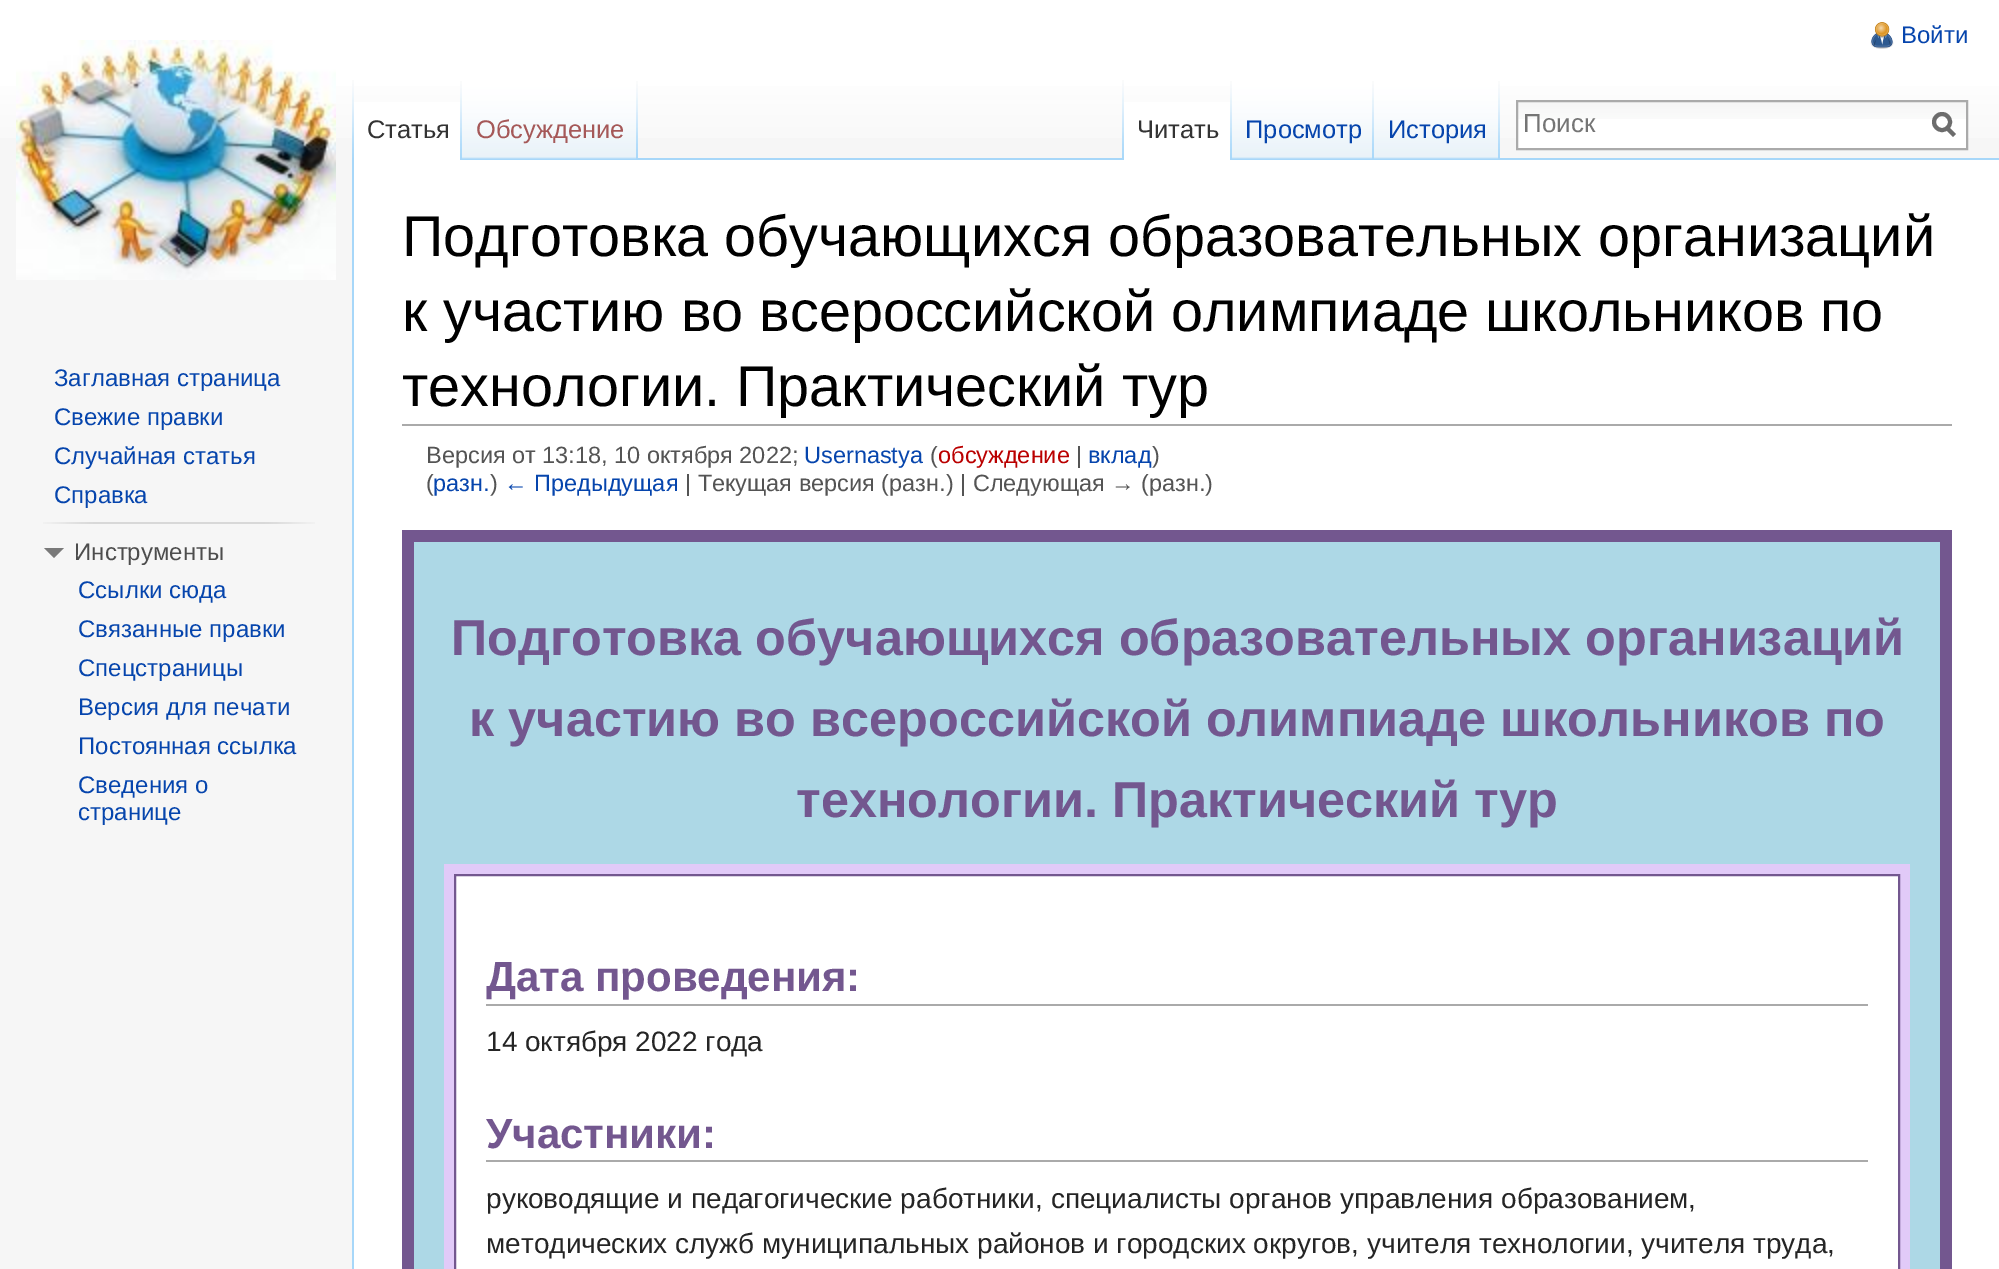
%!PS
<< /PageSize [1999 1269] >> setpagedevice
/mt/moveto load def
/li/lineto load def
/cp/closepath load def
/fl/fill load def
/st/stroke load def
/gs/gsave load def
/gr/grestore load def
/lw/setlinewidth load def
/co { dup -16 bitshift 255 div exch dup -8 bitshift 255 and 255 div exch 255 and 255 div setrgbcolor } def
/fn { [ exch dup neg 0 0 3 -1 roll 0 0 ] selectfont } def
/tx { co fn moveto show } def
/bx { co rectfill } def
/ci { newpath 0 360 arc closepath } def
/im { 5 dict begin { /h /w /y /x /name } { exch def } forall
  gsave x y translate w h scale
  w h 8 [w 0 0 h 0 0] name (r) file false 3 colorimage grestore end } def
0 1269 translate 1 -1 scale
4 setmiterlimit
0 0 1999 1269 16#F6F6F6 bx
gs 0 0 mt 1999 0 li 1999 138 li 0 138 li cp clip newpath
<< /ShadingType 2 /ColorSpace /DeviceRGB /Coords [1000 0 1000 160] /Extend [true true] /Function << /FunctionType 3 /Domain [0 1] /Functions [<< /FunctionType 2 /Domain [0 1] /C0 [1 1 1] /C1 [1 1 1] /N 1 >> << /FunctionType 2 /Domain [0 1] /C0 [1 1 1] /C1 [.965 .965 .965] /N 1 >>] /Bounds [.5] /Encode [0 1 0 1] >> >> shfill gr
(media/1.raw) 1870 22 24 27 im
(media/2.raw) 352 80 2 78 im
354 102 108 58 16#FFFFFF bx
(media/3.raw) 460 81 2 79 im
(media/4.raw) 462 80 176 80 im
(media/5.raw) 636 81 2 78 im
(media/2.raw) 1122 80 2 78 im
638 158 1361 2 16#A7D7F9 bx
1124 102 108 58 16#FFFFFF bx
(media/3.raw) 1230 81 2 79 im
(media/6.raw) 1232 80 142 80 im
(media/5.raw) 1372 81 2 78 im
(media/7.raw) 1374 80 126 80 im
(media/5.raw) 1498 81 2 78 im
1518 119 448 29 16#FFFFFF bx
(media/8.raw) 1518 102 448 17 im
16#AAAAAA co
2 lw
1517 101 450 48 rectstroke
16#6C6C6C co
4 lw
1954.5 135.5 mt 1946.5 127.5 li st
1942 122 8 ci st
(media/9.raw) 16 40 320 240 im
(media/10.raw) 43 522 272 2 im
16#797979 co
64 548 mt 54 558 li 44 548 li cp fl
354 160 1645 1109 16#FFFFFF bx
352 158 2 1111 16#A7D7F9 bx
402 424 1550 2 16#AAAAAA bx
402 530 1550 739 16#73578F bx
414 542 1526 727 16#ADD8E6 bx
444 864 1466 405 16#E1CAF8 bx
16#FFFFFF co
455 875 mt 1899 875 li 1899 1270 li 455 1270 li cp gs fl gr
16#73578F co
2 lw
st
486 1004 1382 2 16#AAAAAA bx
486 1160 1382 2 16#AAAAAA bx
(Войти) 1901 43 /LiberationSans-Regular 24 16#0645AD tx
(Статья) 367 138 /LiberationSans-Regular 25.5 16#333333 tx
(Обсуждение) 476 138 /LiberationSans-Regular 25.5 16#A55858 tx
(Читать) 1137 138 /LiberationSans-Regular 25.5 16#333333 tx
(Просмотр) 1245 138 /LiberationSans-Regular 25.5 16#0645AD tx
(История) 1388 138 /LiberationSans-Regular 25.5 16#0645AD tx
(Поиск) 1523 132 /LiberationSans-Regular 26 16#757575 tx
(Заглавная страница) 54 386 /LiberationSans-Regular 24 16#0645AD tx
(Свежие правки) 54 425 /LiberationSans-Regular 24 16#0645AD tx
(Случайная статья) 54 464 /LiberationSans-Regular 24 16#0645AD tx
(Справка) 54 503 /LiberationSans-Regular 24 16#0645AD tx
(Инструменты) 74 560 /LiberationSans-Regular 24 16#4D4D4D tx
(Ссылки сюда) 78 598 /LiberationSans-Regular 24 16#0645AD tx
(Связанные правки) 78 637 /LiberationSans-Regular 24 16#0645AD tx
(Спецстраницы) 78 676 /LiberationSans-Regular 24 16#0645AD tx
(Версия для печати) 78 715 /LiberationSans-Regular 24 16#0645AD tx
(Постоянная ссылка) 78 754 /LiberationSans-Regular 24 16#0645AD tx
(Сведения о) 78 793 /LiberationSans-Regular 24 16#0645AD tx
(странице) 78 820 /LiberationSans-Regular 24 16#0645AD tx
(Подготовка обучающихся образовательных организаций) 402 256 /LiberationSans-Regular 57.6 16#000000 tx
(к участию во всероссийской олимпиаде школьников по) 402 331 /LiberationSans-Regular 57.6 16#000000 tx
(технологии. Практический тур) 402 406 /LiberationSans-Regular 57.6 16#000000 tx
(Версия от 13:18, 10 октября 2022;) 426 463 /LiberationSans-Regular 23.5 16#545454 tx
(Usernastya) 804 463 /LiberationSans-Regular 23.5 16#0645AD tx
(\() 930 463 /LiberationSans-Regular 23.5 16#545454 tx
(обсуждение) 938 463 /LiberationSans-Regular 23.5 16#BA0000 tx
(|) 1076 463 /LiberationSans-Regular 23.5 16#545454 tx
(вклад) 1088 463 /LiberationSans-Regular 23.5 16#0645AD tx
(\)) 1152 463 /LiberationSans-Regular 23.5 16#545454 tx
(\() 426 491 /LiberationSans-Regular 23.5 16#545454 tx
(разн.) 433 491 /LiberationSans-Regular 23.5 16#0645AD tx
(\)) 490 491 /LiberationSans-Regular 23.5 16#545454 tx
(← Предыдущая) 504 491 /LiberationSans-Regular 23.5 16#0645AD tx
(| Текущая версия \(разн.\) | Следующая → \(разн.\)) 685 491 /LiberationSans-Regular 23.5 16#545454 tx
(Подготовка обучающихся образовательных организаций) 451 655 /LiberationSans-Bold 50.4 16#73578F tx
(к участию во всероссийской олимпиаде школьников по) 469 736 /LiberationSans-Bold 50.4 16#73578F tx
(технологии. Практический тур) 796 817 /LiberationSans-Bold 50.4 16#73578F tx
(Дата проведения:) 486 991 /LiberationSans-Bold 42 16#73578F tx
(14 октября 2022 года) 486 1051 /LiberationSans-Regular 28 16#252525 tx
(Участники:) 486 1148 /LiberationSans-Bold 42 16#73578F tx
(руководящие и педагогические работники, специалисты органов управления образованием,) 486 1208 /LiberationSans-Regular 28 16#252525 tx
(методических служб муниципальных районов и городских округов, учителя технологии, учителя труда,) 486 1253 /LiberationSans-Regular 28 16#252525 tx
showpage
